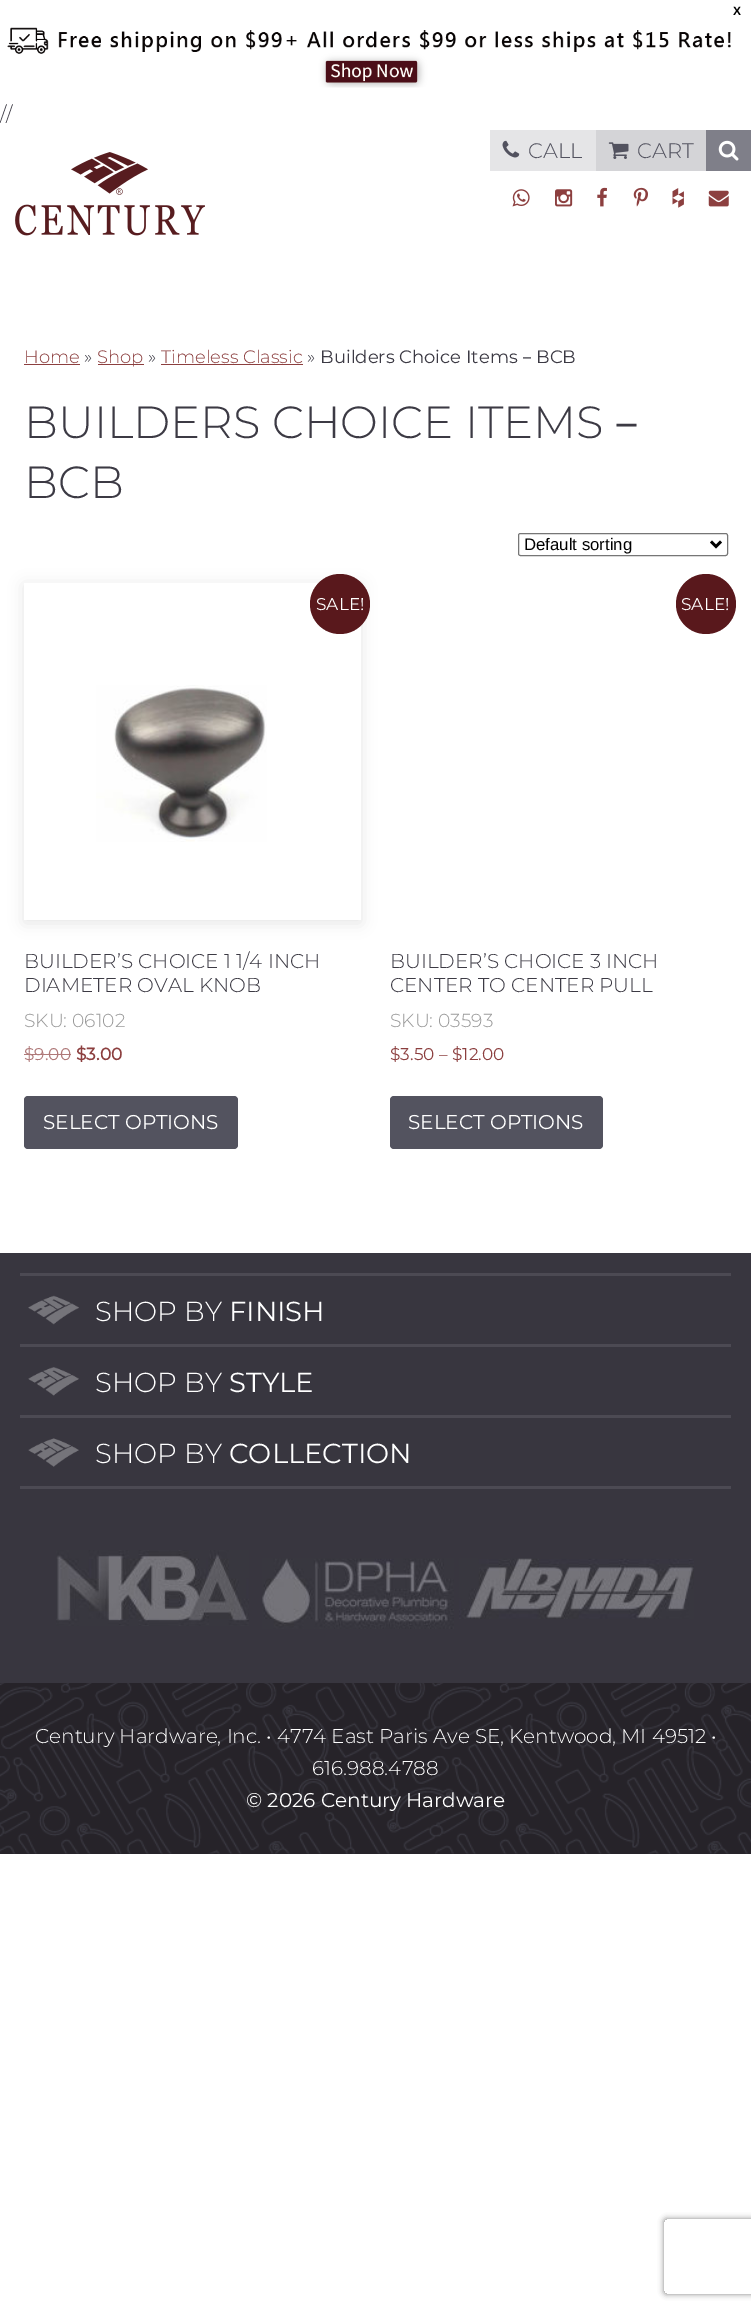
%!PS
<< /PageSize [751 2311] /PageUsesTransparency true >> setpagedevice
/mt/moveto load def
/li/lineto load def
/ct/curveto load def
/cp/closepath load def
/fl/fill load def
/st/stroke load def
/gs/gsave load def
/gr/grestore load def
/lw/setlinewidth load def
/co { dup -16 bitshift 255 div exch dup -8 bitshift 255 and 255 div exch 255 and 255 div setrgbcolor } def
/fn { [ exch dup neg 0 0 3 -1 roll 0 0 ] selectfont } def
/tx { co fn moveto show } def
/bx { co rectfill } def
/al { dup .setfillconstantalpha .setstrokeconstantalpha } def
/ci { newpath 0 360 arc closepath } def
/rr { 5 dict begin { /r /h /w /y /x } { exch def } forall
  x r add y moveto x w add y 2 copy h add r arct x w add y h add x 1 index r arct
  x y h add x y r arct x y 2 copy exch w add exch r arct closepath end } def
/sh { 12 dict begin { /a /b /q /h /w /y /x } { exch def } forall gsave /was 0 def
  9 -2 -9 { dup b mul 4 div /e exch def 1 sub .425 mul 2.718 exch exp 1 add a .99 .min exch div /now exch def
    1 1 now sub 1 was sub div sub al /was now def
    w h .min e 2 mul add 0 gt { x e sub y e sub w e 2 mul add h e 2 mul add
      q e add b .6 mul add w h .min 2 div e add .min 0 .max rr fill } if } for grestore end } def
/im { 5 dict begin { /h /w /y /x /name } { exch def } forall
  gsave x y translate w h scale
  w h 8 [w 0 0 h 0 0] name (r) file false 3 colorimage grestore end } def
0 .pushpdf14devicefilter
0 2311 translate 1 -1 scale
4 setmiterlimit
0 0 751 2311 16#FFFFFF bx
(media/1.raw) 7 27 724 61 im
(media/2.raw) 15 152 190 84 im
490 130 106 41 16#E5E5E7 bx
(media/3.raw) 502 140 18 18 im
596 130 110 41 16#D4D4D7 bx
(media/4.raw) 608 142 21 17 im
706 130 45 41 16#7F7F89 bx
(media/5.raw) 718 140 21 21 im
(media/6.raw) 512 189 18 18 im
(media/7.raw) 555 189 18 18 im
(media/8.raw) 597 187 10 20 im
(media/9.raw) 633 187 15 20 im
(media/10.raw) 672 188 12 20 im
(media/11.raw) 708 190 21 17 im
24 364 56 1 16#8C3F3F bx
98 364 46 1 16#8C3F3F bx
161 364 142 1 16#8C3F3F bx
16#767676 co
518.5 533.5 209 22 2 rr st
16#000000 co
2.5 lw
711 541.5 mt 716 546.5 li 721 541.5 li st
gs
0 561 mt 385 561 li 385 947 li 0 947 li cp 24 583 mt 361 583 li 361 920 li 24 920 li cp eoclip newpath
24 585 337 338 0 7.5 .1 sh
gr
(media/12.raw) 96 685 171 157 im
16#59181C co
340 604 30 ci fl
24 1054 47 1 16#AF7979 bx
16#53535F co
24 1096 214 53 4 rr fl
16#59181C co
706 604 30 ci fl
16#53535F co
390 1096 213 53 4 rr fl
0 1253 751 430 16#38363F bx
20 1273 711 3 16#4C4A53 bx
(media/13.raw) 28 1295 51 30 im
20 1344 711 3 16#4C4A53 bx
(media/14.raw) 28 1367 51 29 im
20 1415 711 3 16#4C4A53 bx
(media/15.raw) 28 1438 51 29 im
20 1486 711 3 16#4C4A53 bx
(media/16.raw) 56 1550 193 76 im
(media/17.raw) 262 1558 192 71 im
(media/18.raw) 459 1558 235 61 im
0 1683 751 171 16#262329 bx
(media/19.raw) 0 1683 751 171 im
gs
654 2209 mt 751 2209 li 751 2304 li 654 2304 li cp 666.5 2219 mt 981.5 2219 li 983 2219 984 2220 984 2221.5 ct 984 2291.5 li 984 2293 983 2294 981.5 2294 ct 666.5 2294 li 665 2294 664 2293 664 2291.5 ct 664 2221.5 li 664 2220 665 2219 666.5 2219 ct cp eoclip newpath
16#808080 co
664 2219 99 75 2.5 3 1 sh
gr
(X) 733 15 /LiberationSans-Bold 12 16#000000 tx
(//) 0 121 /Montserrat-Light 20 16#3C3A44 tx
(CALL) 528 158 /Montserrat-Light 21 16#52525F tx
(CART) 637 158 /Montserrat-Light 21 16#52525F tx
(Home) 24 363 /Montserrat-Light 18 16#8C3F3F tx
(») 84 363 /Montserrat-Light 18 16#3C3A44 tx
(Shop) 97 363 /Montserrat-Light 18 16#8C3F3F tx
(») 148 363 /Montserrat-Light 18 16#3C3A44 tx
(Timeless Classic) 161 363 /Montserrat-Light 18 16#8C3F3F tx
(») 307 363 /Montserrat-Light 18 16#3C3A44 tx
(Builders Choice Items) 320 363 /Montserrat-Regular 18 16#3C3A44 tx
(－) 518 363 /WenQuanYiZenHei-Medium 18 16#3C3A44 tx
(BCB) 536 363 /Montserrat-Regular 18 16#3C3A44 tx
(BUILDERS CHOICE ITEMS) 24 438 /Montserrat-Light 45 16#3C3A44 tx
(－) 604 438 /WenQuanYiZenHei-Medium 45 16#3C3A44 tx
(BCB) 24 498 /Montserrat-Light 45 16#3C3A44 tx
(Default sorting) 524 550 /LiberationSans-Regular 16.75 16#000000 tx
(SALE!) 316 610 /Montserrat-Regular 17 16#FFFFFF tx
(BUILDER’S CHOICE 1 1/4 INCH) 24 968 /Montserrat-Light 20 16#3C3A44 tx
(DIAMETER OVAL KNOB) 24 992 /Montserrat-Light 20 16#3C3A44 tx
(SKU: 06102) 24 1027 /Montserrat-Light 18.75 16#999999 tx
($9.00) 24 1060 /Montserrat-Regular 17 16#AF7979 tx
($3.00) 76 1060 /Montserrat-Bold 17 16#8C3F3F tx
(SELECT OPTIONS) 43 1129 /Montserrat-Regular 20 16#FFFFFF tx
(SALE!) 681 610 /Montserrat-Regular 17 16#FFFFFF tx
(BUILDER’S CHOICE 3 INCH) 390 968 /Montserrat-Light 20 16#3C3A44 tx
(CENTER TO CENTER PULL) 390 992 /Montserrat-Light 20 16#3C3A44 tx
(SKU: 03593) 390 1027 /Montserrat-Light 18.75 16#999999 tx
($3.50 – $12.00) 390 1060 /Montserrat-Regular 17 16#8C3F3F tx
(SELECT OPTIONS) 408 1129 /Montserrat-Regular 20 16#FFFFFF tx
(SHOP BY) 95 1321 /Montserrat-Light 27.5 16#FFFFFF tx
(FINISH) 229 1321 /Montserrat-Regular 27.5 16#FFFFFF tx
(SHOP BY) 95 1392 /Montserrat-Light 27.5 16#FFFFFF tx
(STYLE) 229 1392 /Montserrat-Regular 27.5 16#FFFFFF tx
(SHOP BY) 95 1463 /Montserrat-Light 27.5 16#FFFFFF tx
(COLLECTION) 229 1463 /Montserrat-Regular 27.5 16#FFFFFF tx
(Century Hardware, Inc. • 4774 East Paris Ave SE, Kentwood, MI 49512 •) 35 1743 /Montserrat-Light 20 16#FFFFFF tx
(616.988.4788) 312 1775 /Montserrat-Light 20 16#FFFFFF tx
(© 2026 Century Hardware) 246 1807 /Montserrat-Regular 20 16#FFFFFF tx
.poppdf14devicefilter showpage
